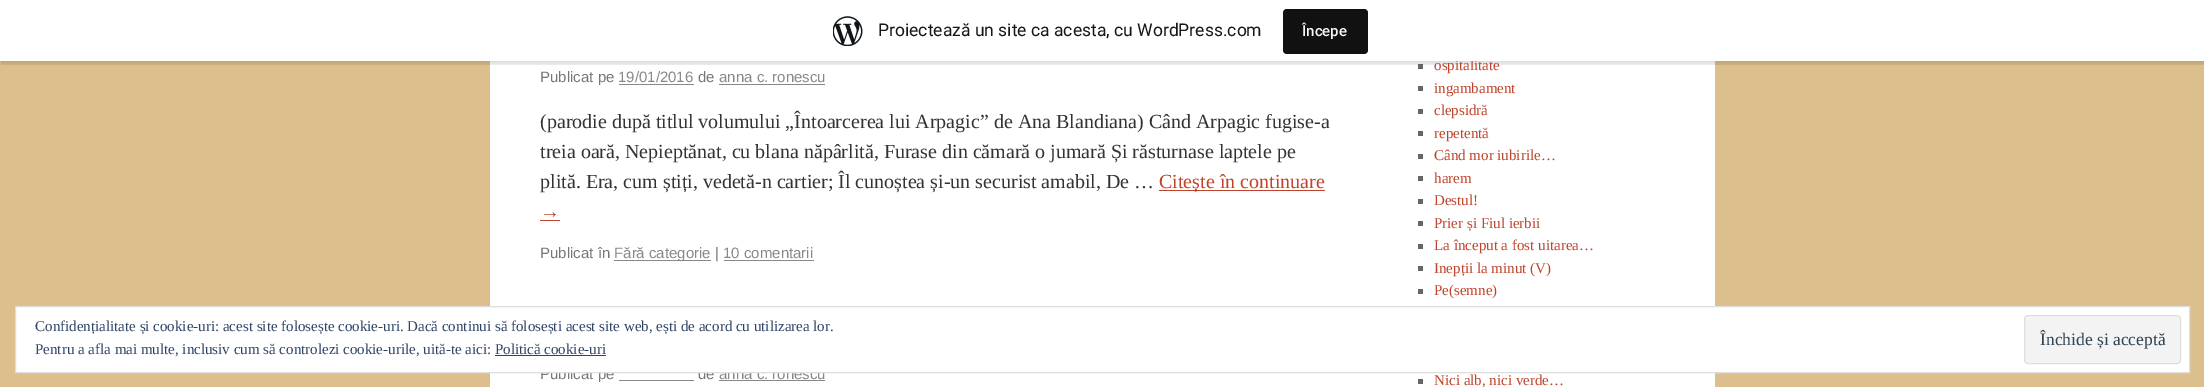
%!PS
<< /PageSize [2204 387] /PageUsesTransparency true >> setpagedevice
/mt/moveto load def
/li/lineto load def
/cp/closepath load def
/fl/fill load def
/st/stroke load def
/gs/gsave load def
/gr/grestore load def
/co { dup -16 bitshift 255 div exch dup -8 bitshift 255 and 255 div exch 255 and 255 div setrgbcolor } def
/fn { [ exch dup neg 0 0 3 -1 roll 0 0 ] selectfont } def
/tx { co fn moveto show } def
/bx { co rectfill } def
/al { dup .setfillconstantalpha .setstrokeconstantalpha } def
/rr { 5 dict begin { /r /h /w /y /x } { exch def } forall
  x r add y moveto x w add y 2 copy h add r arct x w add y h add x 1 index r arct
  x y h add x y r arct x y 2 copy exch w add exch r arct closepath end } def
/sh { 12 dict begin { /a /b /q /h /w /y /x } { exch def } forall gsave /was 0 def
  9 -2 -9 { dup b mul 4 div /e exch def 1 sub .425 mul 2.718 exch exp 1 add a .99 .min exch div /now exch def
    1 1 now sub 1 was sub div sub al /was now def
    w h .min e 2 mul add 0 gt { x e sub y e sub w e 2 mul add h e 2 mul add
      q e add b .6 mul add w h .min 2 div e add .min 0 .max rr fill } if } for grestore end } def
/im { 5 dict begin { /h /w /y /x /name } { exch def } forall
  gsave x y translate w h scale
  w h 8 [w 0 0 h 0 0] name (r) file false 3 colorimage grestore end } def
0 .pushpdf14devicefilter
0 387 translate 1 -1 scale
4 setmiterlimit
0 0 2204 387 16#DDBF8D bx
490 61 1225 326 16#FFFFFF bx
1418 64 5 5 16#666666 bx
16#000000 co
0 1 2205 62 0 1 .05 sh
0.08 al
1 61 mt 1 65 li 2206 65 li 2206 4 li 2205 4 li 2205 61 li cp fl
1 al
619 84 75 1 16#888888 bx
719 84 106 1 16#888888 bx
1159 190 166 1 16#BF442B bx
540 220 20 1 16#BF442B bx
614 260 97 1 16#888888 bx
724 260 90 1 16#888888 bx
719 380 106 1 16#888888 bx
619 380 75 1 16#888888 bx
1418 86 5 5 16#666666 bx
1418 109 5 5 16#666666 bx
1418 131 5 5 16#666666 bx
1418 154 5 5 16#666666 bx
1418 176 5 5 16#666666 bx
1418 199 5 5 16#666666 bx
1418 221 5 5 16#666666 bx
1418 244 5 5 16#666666 bx
1418 266 5 5 16#666666 bx
1418 289 5 5 16#666666 bx
1418 379 5 5 16#666666 bx
(Publicat pe) 540 82 /LiberationSans-Regular 15 16#777777 tx
(19/01/2016) 618 82 /LiberationSans-Regular 15 16#888888 tx
(de) 698 82 /LiberationSans-Regular 15 16#777777 tx
(anna c. ronescu) 719 82 /LiberationSans-Regular 15 16#888888 tx
(\(parodie după titlul volumului „Întoarcerea lui Arpagic” de Ana Blandiana\) Când Arpagic fugise-a) 540 128 /LiberationSerif-Regular 20 16#333333 tx
(treia oară, Nepieptănat, cu blana năpârlită, Furase din cămară o jumară Și răsturnase laptele pe) 540 158 /LiberationSerif-Regular 20 16#333333 tx
(plită. Era, cum știți, vedetă-n cartier; Îl cunoștea și-un securist amabil, De …) 540 188 /LiberationSerif-Regular 20 16#333333 tx
(Citește în continuare) 1159 188 /LiberationSerif-Regular 20 16#BF442B tx
(→) 540 218 /LiberationSerif-Regular 20 16#BF442B tx
(Publicat în) 540 258 /LiberationSans-Regular 15 16#777777 tx
(Fără categorie) 614 258 /LiberationSans-Regular 15 16#888888 tx
(|) 715 258 /LiberationSans-Regular 15 16#777777 tx
(10 comentarii) 723 258 /LiberationSans-Regular 15 16#888888 tx
(Publicat pe) 540 379 /LiberationSans-Regular 15 16#777777 tx
(de) 698 379 /LiberationSans-Regular 15 16#777777 tx
(anna c. ronescu) 719 379 /LiberationSans-Regular 15 16#888888 tx
(ospitalitate) 1434 70 /LiberationSerif-Regular 15 16#BF442B tx
0 0 2204 61 16#FFFFFF bx
(media/1.raw) 833 16 30 30 im
(Proiectează un site ca acesta, cu WordPress.com) 878 36 /Roboto-Regular 17.5 16#171717 tx
16#111111 co
1283 9 85 45 4 rr fl
(Începe) 1302 36 /Roboto-Medium 15 16#F6F7F7 tx
(ingambament) 1434 93 /LiberationSerif-Regular 15 16#BF442B tx
(clepsidră) 1434 115 /LiberationSerif-Regular 15 16#BF442B tx
(repetentă) 1434 138 /LiberationSerif-Regular 15 16#BF442B tx
(Când mor iubirile…) 1434 160 /LiberationSerif-Regular 15 16#BF442B tx
(harem) 1434 183 /LiberationSerif-Regular 15 16#BF442B tx
(Destul!) 1434 205 /LiberationSerif-Regular 15 16#BF442B tx
(Prier și Fiul ierbii) 1434 228 /LiberationSerif-Regular 15 16#BF442B tx
(La început a fost uitarea…) 1434 250 /LiberationSerif-Regular 15 16#BF442B tx
(Inepții la minut \(V\)) 1434 273 /LiberationSerif-Regular 15 16#BF442B tx
(Pe\(semne\)) 1434 295 /LiberationSerif-Regular 15 16#BF442B tx
(Nici alb, nici verde…) 1434 385 /LiberationSerif-Regular 15 16#BF442B tx
16#FFFFFF co
15.5 306.5 mt 2189.5 306.5 li 2189.5 372.5 li 15.5 372.5 li cp gs fl gr
16#DEDEDE co
st
(Confidențialitate și cookie-uri: acest site folosește cookie-uri. Dacă continui să folosești acest site web, ești de acord cu utilizarea lor.) 35 331 /LiberationSerif-Regular 15 16#2E4467 tx
(Pentru a afla mai multe, inclusiv cum să controlezi cookie-urile, uită-te aici: Politică cookie-uri) 35 354 /LiberationSerif-Regular 15 16#2E4467 tx
16#F3F3F3 co
2024.5 315.5 156 48 3.5 rr gs fl gr
16#DEDEDE co
st
(Închide și acceptă) 2040 345 /LiberationSerif-Regular 17.5 16#2E4453 tx
495 355 111 1 16#2E4467 bx
.poppdf14devicefilter showpage
